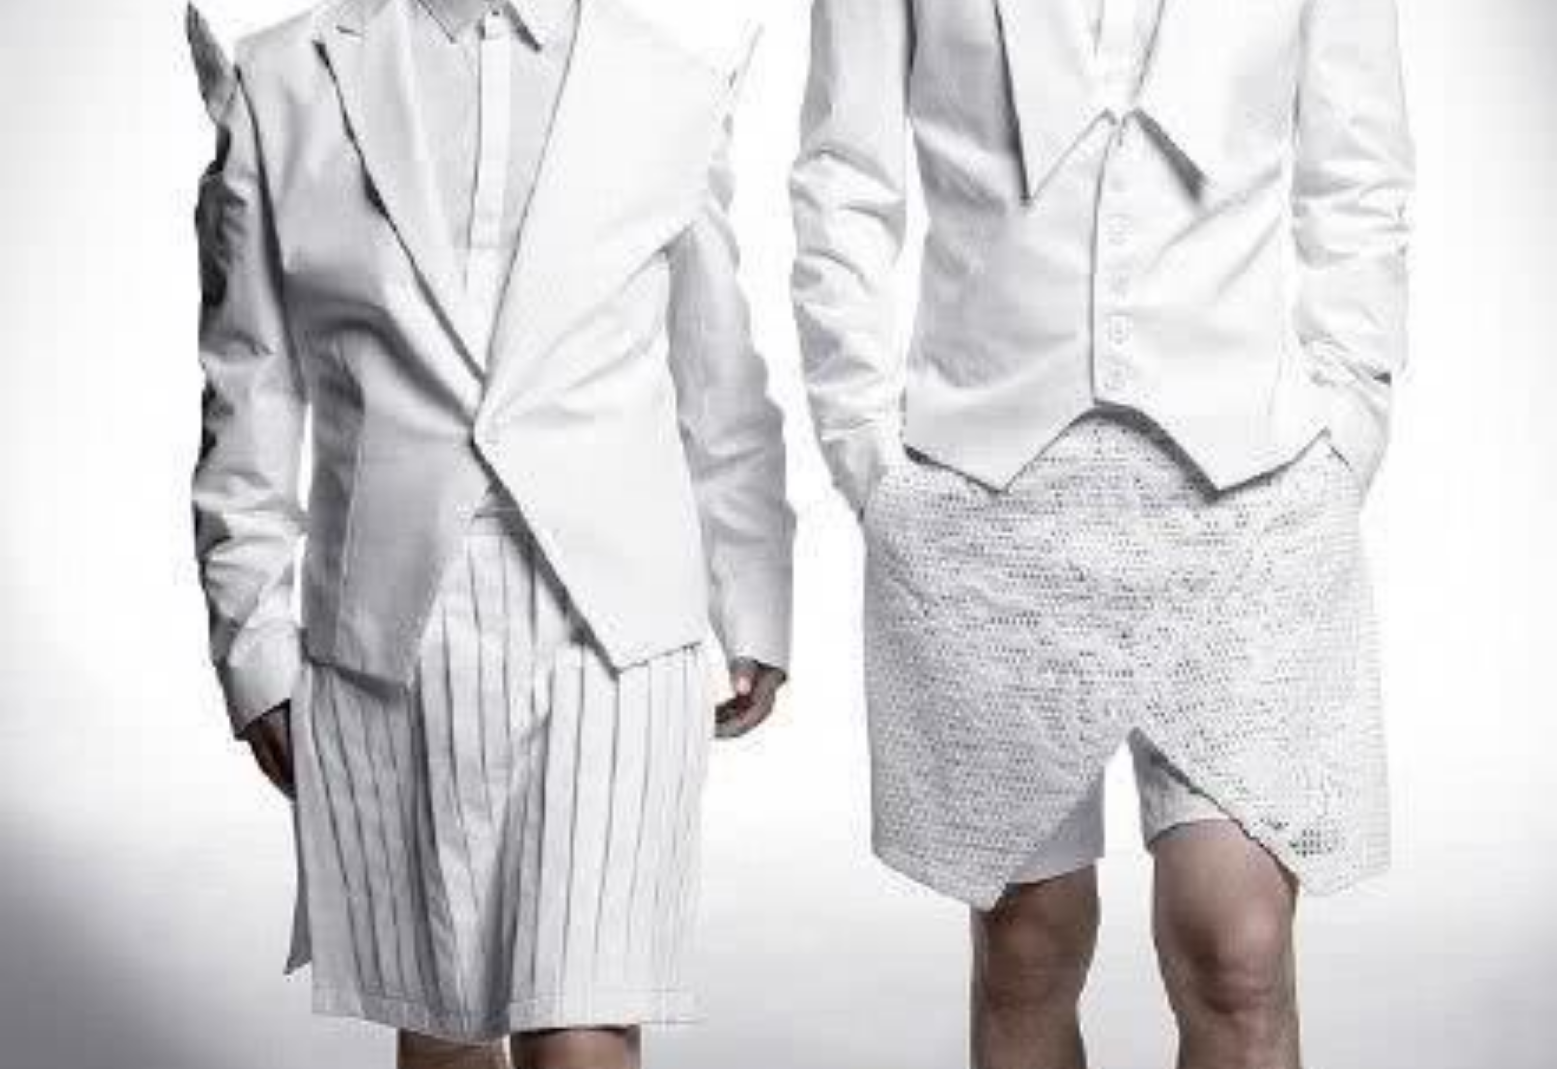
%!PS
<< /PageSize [1557 1069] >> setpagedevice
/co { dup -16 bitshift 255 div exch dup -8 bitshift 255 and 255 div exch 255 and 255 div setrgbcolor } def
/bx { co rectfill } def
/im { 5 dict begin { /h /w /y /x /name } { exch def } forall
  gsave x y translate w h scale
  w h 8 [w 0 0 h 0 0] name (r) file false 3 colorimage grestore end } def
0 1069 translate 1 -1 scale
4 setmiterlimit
0 0 1557 1069 16#FFFFFF bx
(media/1.raw) 0 0 1557 1069 im
showpage
